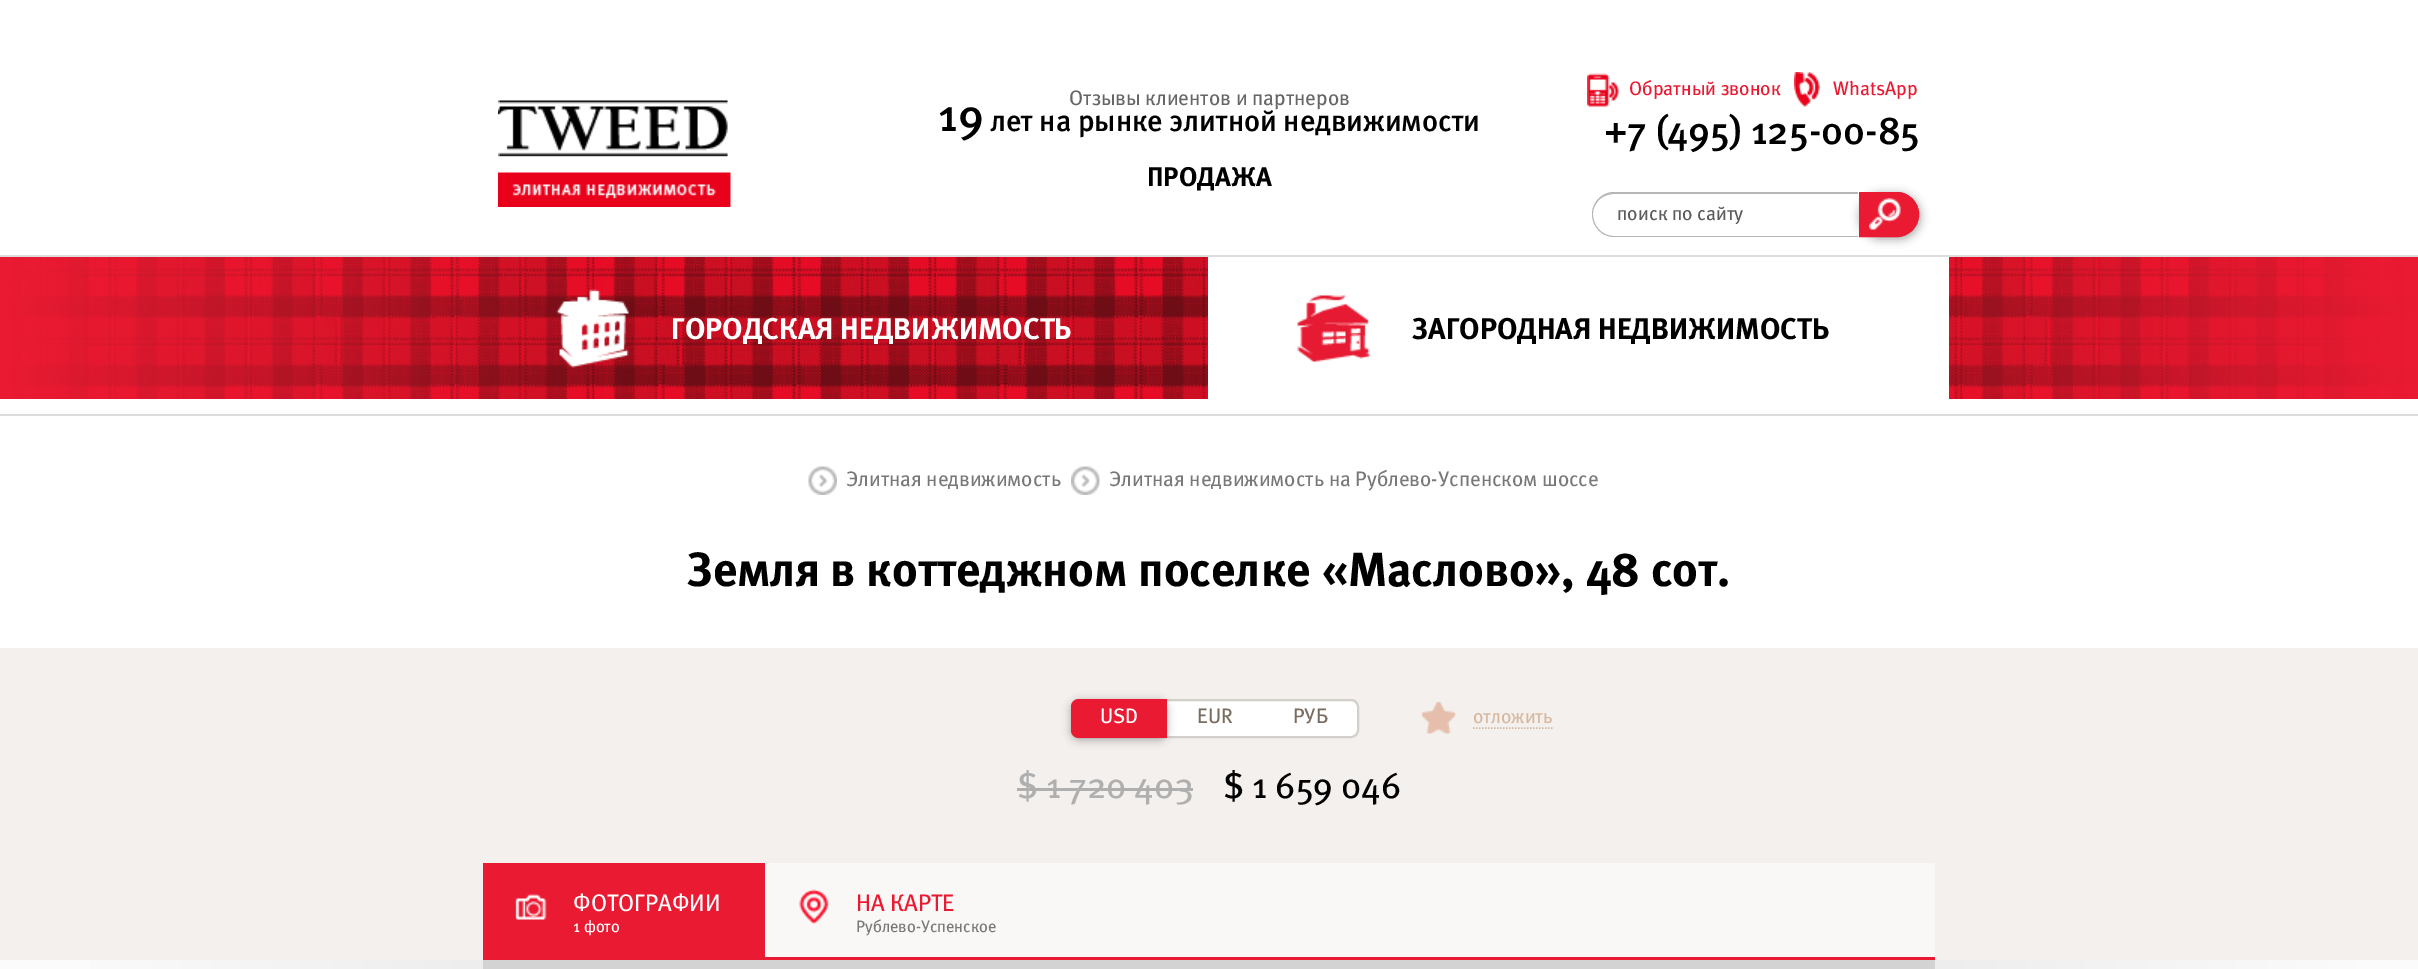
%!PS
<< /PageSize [2418 969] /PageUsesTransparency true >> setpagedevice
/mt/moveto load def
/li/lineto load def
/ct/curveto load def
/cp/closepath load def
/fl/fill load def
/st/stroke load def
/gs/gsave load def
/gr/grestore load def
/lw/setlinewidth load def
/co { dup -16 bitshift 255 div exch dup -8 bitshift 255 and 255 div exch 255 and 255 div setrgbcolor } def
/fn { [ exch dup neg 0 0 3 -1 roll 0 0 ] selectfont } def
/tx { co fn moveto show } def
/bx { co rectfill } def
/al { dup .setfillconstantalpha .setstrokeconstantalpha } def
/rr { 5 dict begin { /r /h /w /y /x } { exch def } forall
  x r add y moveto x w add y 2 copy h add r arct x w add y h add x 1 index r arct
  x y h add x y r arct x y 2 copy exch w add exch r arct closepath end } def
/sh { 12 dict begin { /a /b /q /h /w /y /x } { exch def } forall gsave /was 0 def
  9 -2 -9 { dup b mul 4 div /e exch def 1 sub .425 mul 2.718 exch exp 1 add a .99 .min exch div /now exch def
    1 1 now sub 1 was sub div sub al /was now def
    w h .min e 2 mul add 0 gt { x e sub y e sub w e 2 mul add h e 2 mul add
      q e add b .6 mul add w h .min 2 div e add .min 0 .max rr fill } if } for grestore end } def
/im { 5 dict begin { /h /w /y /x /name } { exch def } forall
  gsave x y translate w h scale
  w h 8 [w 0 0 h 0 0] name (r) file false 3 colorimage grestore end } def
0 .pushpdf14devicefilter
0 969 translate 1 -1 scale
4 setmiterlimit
0 0 2418 969 16#FFFFFF bx
(media/1.raw) 498 100 233 107 im
(media/2.raw) 1587 73 32 34 im
(media/3.raw) 1794 72 26 35 im
16#B6B6B6 co
1614 192 mt 1858 192 li 1858 237 li 1614 237 li 1602 237 1592 227 1592 214 ct 1592 202 1602 192 1614 192 ct cp 1614 194 mt 1858 194 li 1858 236 li 1614 236 li 1602 236 1593 226 1593 214 ct 1593 203 1602 194 1614 194 ct cp eofill
16#646464 co
1860 194 60 45 22.5 4.5 .6 sh
16#EA1A32 co
1859 192 mt 1896.5 192 li 1909 192 1919 202 1919 214.5 ct 1919 227 1909 237 1896.5 237 ct 1859 237 li cp fl
(media/4.raw) 1869 198 32 32 im
2 lw
1860 193 mt 1896.5 193 li 1908.5 193 1918 202.5 1918 214.5 ct 1918 226.5 1908.5 236 1896.5 236 ct 1860 236 li cp st
(media/5.raw) 0 257 2418 142 im
0 255 2418 2 16#DDDDDD bx
0 414 2418 2 16#DDDDDD bx
(media/6.raw) 556 289 73 79 im
1208 257 741 142 16#FFFFFF bx
(media/7.raw) 1297 295 73 67 im
(media/8.raw) 808 466 29 29 im
(media/9.raw) 1071 466 29 29 im
0 648 2418 312 16#F3F0ED bx
16#FFFFFF co
1072 700 286 37 7 rr gs fl gr
16#D3D0CC co
st
16#000000 co
1071 701 96 39 8 4.5 .3 sh
16#EA1A32 co
1079 699 mt 1167 699 li 1167 738 li 1079 738 li 1074.5 738 1071 734.5 1071 730 ct 1071 707 li 1071 702.5 1074.5 699 1079 699 ct cp fl
(media/10.raw) 1421 701 35 33 im
16#D6B7A0 co
1.5 lw
[1.5 1.5] 0 setdash
1473 728 mt 1552.5 728 li st
1017 788 176 3 16#AFAFAF bx
765 863 1170 94 16#F9F8F6 bx
483 957 1452 3 16#EA1A32 bx
483 863 282 94 16#EA1A32 bx
(media/11.raw) 515 893 32 27 im
(media/12.raw) 799 889 30 36 im
gs 0 960 mt 483 960 li 483 969 li 0 969 li cp clip newpath
<< /ShadingType 2 /ColorSpace /DeviceRGB /Coords [-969 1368 483 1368] /Extend [true true] /Function << /FunctionType 3 /Domain [0 1] /Functions [<< /FunctionType 2 /Domain [0 1] /C0 [1 1 1] /C1 [.988 .988 .988] /N 1 >> << /FunctionType 2 /Domain [0 1] /C0 [.988 .988 .988] /C1 [.984 .984 .984] /N 1 >> << /FunctionType 2 /Domain [0 1] /C0 [.984 .984 .984] /C1 [.929 .929 .929] /N 1 >>] /Bounds [.49 .72] /Encode [0 1 0 1 0 1] >> >> shfill gr
483 960 1452 9 16#D3D3D3 bx
gs 1935 960 mt 2418 960 li 2418 969 li 1935 969 li cp clip newpath
<< /ShadingType 2 /ColorSpace /DeviceRGB /Coords [1935 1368 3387 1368] /Extend [true true] /Function << /FunctionType 3 /Domain [0 1] /Functions [<< /FunctionType 2 /Domain [0 1] /C0 [.929 .929 .929] /C1 [.984 .984 .984] /N 1 >> << /FunctionType 2 /Domain [0 1] /C0 [.984 .984 .984] /C1 [.988 .988 .988] /N 1 >> << /FunctionType 2 /Domain [0 1] /C0 [.988 .988 .988] /C1 [1 1 1] /N 1 >>] /Bounds [.3 .49] /Encode [0 1 0 1 0 1] >> >> shfill gr
(Отзывы клиентов и партнеров) 1069 105 /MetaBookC-Regular 21 16#666666 tx
(19) 938 131 /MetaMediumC-Medium 46 16#000000 tx
(лет на рынке элитной недвижимости) 990 131 /MetaMediumC-Medium 30 16#000000 tx
(ПРОДАЖА) 1147 186 /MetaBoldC-Bold 27 16#000000 tx
(Обратный звонок) 1629 95 /MetaBookC-Regular 19.5 16#EA1A32 tx
(WhatsApp) 1833 95 /MetaBookC-Regular 19.5 16#EA1A32 tx
(+7 \(495\) 125-00-85) 1604 144 /MetaMediumC-Medium 39 16#000000 tx
(поиск по сайту) 1617 220 /MetaBookC-Regular 19.5 16#5C5C5C tx
(ГОРОДСКАЯ НЕДВИЖИМОСТЬ) 671 339 /MetaBoldC-Bold 30 16#FFFFFF tx
(ЗАГОРОДНАЯ НЕДВИЖИМОСТЬ) 1412 339 /MetaBoldC-Bold 30 16#000000 tx
(Элитная недвижимость) 846 486 /MetaBookC-Regular 21 16#787877 tx
(Элитная недвижимость на Рублево-Успенском шоссе) 1109 486 /MetaBookC-Regular 21 16#787877 tx
(Земля в коттеджном поселке «Маслово», 48 сот.) 687 586 /MetaBoldC-Bold 48 16#000000 tx
(USD) 1100 723 /MetaBookC-Regular 21 16#FFFFFF tx
(EUR) 1197 723 /MetaBookC-Regular 21 16#7A6B5F tx
(РУБ) 1293 723 /MetaBookC-Regular 21 16#7A6B5F tx
(отложить) 1473 723 /MetaBookC-Regular 19.5 16#D6B7A0 tx
($ 1 720 403) 1017 798 /MetaBookC-Regular 36 16#AFAFAF tx
($ 1 659 046) 1223 798 /MetaBookC-Regular 36 16#000000 tx
(ФОТОГРАФИИ) 573 911 /MetaBookC-Regular 24 16#FFFFFF tx
(1 фото) 573 932 /MetaBookC-Regular 16.5 16#FFFFFF tx
(НА КАРТЕ) 856 911 /MetaBookC-Regular 24 16#EA1A32 tx
(Рублево-Успенское) 856 932 /MetaBookC-Regular 16.5 16#787877 tx
.poppdf14devicefilter showpage
